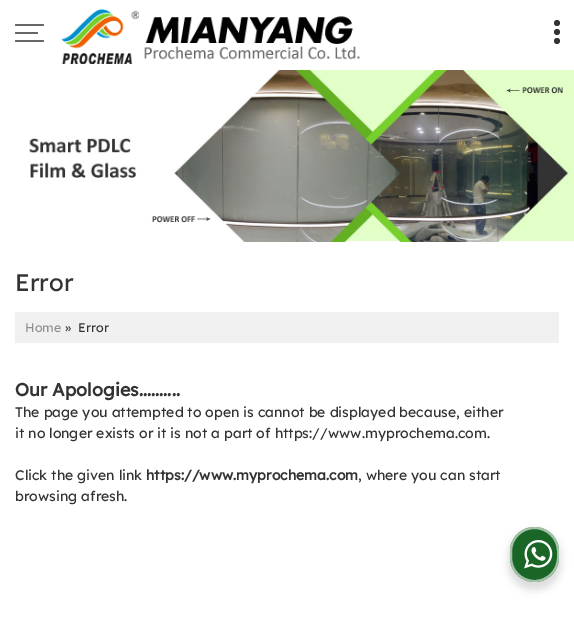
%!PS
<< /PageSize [574 644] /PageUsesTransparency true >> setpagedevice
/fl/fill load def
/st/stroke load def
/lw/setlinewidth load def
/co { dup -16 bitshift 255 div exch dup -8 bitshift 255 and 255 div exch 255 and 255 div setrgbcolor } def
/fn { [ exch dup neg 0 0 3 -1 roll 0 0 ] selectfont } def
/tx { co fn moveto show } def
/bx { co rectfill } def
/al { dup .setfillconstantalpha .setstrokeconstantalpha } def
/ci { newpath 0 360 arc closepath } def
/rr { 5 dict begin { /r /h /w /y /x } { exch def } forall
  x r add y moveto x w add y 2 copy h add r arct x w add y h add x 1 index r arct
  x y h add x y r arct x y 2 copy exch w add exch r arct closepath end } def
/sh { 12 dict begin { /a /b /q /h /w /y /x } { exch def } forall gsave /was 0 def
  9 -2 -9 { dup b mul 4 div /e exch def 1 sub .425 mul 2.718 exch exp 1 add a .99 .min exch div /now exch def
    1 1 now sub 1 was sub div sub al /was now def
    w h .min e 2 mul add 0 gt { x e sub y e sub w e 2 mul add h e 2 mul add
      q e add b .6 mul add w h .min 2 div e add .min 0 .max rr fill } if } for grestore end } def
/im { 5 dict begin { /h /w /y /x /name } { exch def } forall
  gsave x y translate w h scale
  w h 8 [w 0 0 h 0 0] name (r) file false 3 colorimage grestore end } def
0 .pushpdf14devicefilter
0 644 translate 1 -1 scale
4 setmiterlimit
0 0 574 644 16#FFFFFF bx
16#666666 co
15 24 29 2 1 rr fl
15 32 23 2 1 rr fl
15 40 29 2 1 rr fl
(media/1.raw) 61 9 299 55 im
16#333333 co
557 32 3 ci fl
557 23 3 ci fl
557 41 3 ci fl
(media/2.raw) 29 70 545 172 im
15 312 544 31 16#F0F0F0 bx
16#000000 co
508 531 53 59 26.5 4 .14 sh
16#196626 co
510 527 49 55 24.5 rr fl
0.6 al
16#FFFFFF co
2 lw
511 528 47 53 23.5 rr st
1 al
(media/3.raw) 524 540 29 29 im
(Error) 15 291 /Lexend-Regular 24 16#333333 tx
(Home) 25 332 /Lexend-Regular 12.5 16#909090 tx
(»  Error) 65 332 /Lexend-Regular 12.5 16#333333 tx
(Our Apologies..........) 15 396 /Lexend-Bold 18 16#333333 tx
(The page you attempted to open is cannot be displayed because, either) 15 417 /Lexend-Regular 14 16#333333 tx
(it no longer exists or it is not a part of https://www.myprochema.com.) 15 438 /Lexend-Regular 14 16#333333 tx
(Click the given link) 15 480 /Lexend-Regular 14 16#333333 tx
(https://www.myprochema.com) 146 480 /Lexend-Bold 14 16#333333 tx
(, where you can start) 358 480 /Lexend-Regular 14 16#333333 tx
(browsing afresh.) 15 501 /Lexend-Regular 14 16#333333 tx
.poppdf14devicefilter showpage
